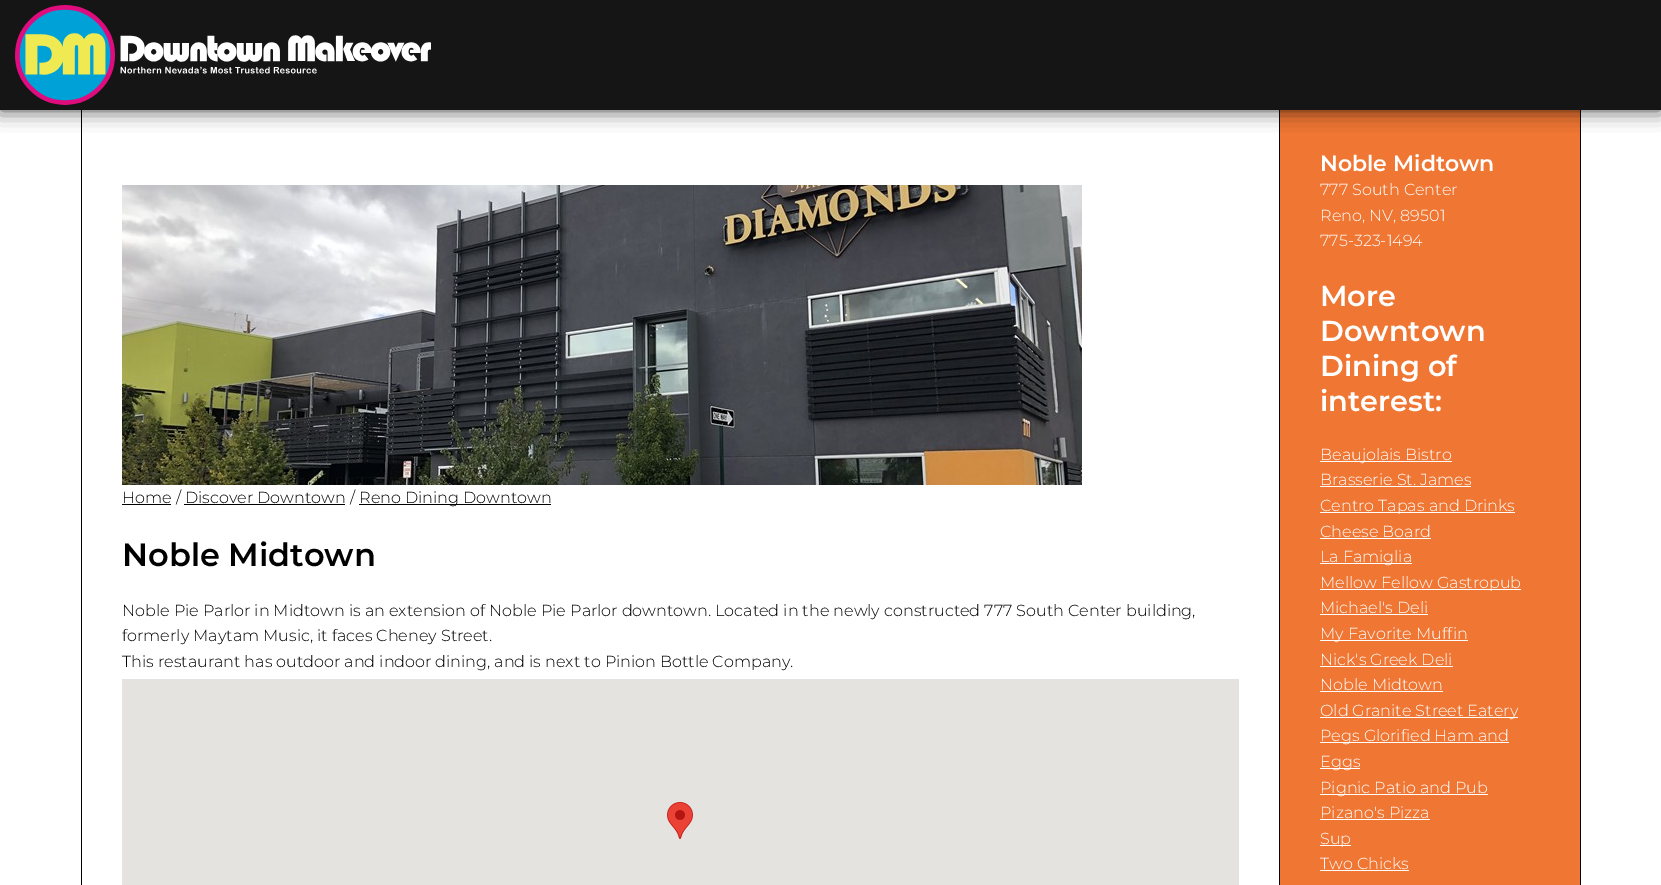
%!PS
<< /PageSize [1661 885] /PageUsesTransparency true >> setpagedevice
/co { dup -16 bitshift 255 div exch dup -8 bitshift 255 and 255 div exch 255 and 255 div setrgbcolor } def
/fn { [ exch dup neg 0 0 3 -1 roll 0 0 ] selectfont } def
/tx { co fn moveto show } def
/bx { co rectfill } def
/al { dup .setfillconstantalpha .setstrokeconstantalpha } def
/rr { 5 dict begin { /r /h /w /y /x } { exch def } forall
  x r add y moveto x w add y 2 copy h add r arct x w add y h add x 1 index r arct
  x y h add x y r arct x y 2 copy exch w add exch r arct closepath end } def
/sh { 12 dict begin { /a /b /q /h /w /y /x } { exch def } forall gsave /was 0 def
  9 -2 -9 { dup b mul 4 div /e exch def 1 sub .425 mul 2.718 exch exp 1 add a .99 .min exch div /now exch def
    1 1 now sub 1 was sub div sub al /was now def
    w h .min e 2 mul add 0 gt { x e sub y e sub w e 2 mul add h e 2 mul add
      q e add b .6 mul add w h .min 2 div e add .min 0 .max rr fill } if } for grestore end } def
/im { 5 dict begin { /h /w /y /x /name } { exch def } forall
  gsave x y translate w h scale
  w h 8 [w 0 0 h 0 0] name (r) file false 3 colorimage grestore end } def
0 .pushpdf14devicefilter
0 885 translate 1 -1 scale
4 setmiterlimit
0 0 1661 885 16#FFFFFF bx
1580 110 1 775 16#000000 bx
81 110 1 775 16#000000 bx
1279 110 1 775 16#000000 bx
1280 110 300 775 16#EF7633 bx
16#000000 co
0 0 1661 110 0 10 .75 sh
0 0 1661 110 16#151515 bx
(media/1.raw) 15 5 416 100 im
(media/2.raw) 122 185 960 300 im
122 504 49 1 16#000000 bx
359 504 192 1 16#000000 bx
184 504 161 1 16#000000 bx
122 679 1117 206 16#E5E3DF bx
(media/3.raw) 667 802 26 37 im
1320 461 132 1 16#FFFFFF bx
1320 486 151 1 16#FFFFFF bx
1320 512 195 1 16#FFFFFF bx
1320 538 111 1 16#FFFFFF bx
1320 563 92 1 16#FFFFFF bx
1320 589 201 1 16#FFFFFF bx
1320 614 108 1 16#FFFFFF bx
1320 640 148 1 16#FFFFFF bx
1320 666 133 1 16#FFFFFF bx
1320 691 123 1 16#FFFFFF bx
1320 717 198 1 16#FFFFFF bx
1320 742 189 1 16#FFFFFF bx
1320 768 40 1 16#FFFFFF bx
1320 794 168 1 16#FFFFFF bx
1320 819 110 1 16#FFFFFF bx
1320 845 31 1 16#FFFFFF bx
1320 870 89 1 16#FFFFFF bx
(Home / Discover Downtown /) 122 503 /Montserrat-Light 16 16#000000 tx
(Reno Dining Downtown) 359 503 /Montserrat-Light 16 16#000000 tx
(Noble Midtown) 122 566 /Montserrat-SemiBold 32 16#000000 tx
(Noble Pie Parlor in Midtown is an extension of Noble Pie Parlor downtown. Located in the newly constructed 777 South Center building,) 122 616 /Montserrat-Light 16 16#000000 tx
(formerly Maytam Music, it faces Cheney Street.) 122 641 /Montserrat-Light 16 16#000000 tx
(This restaurant has outdoor and indoor dining, and is next to Pinion Bottle Company.) 122 667 /Montserrat-Light 16 16#000000 tx
(Noble Midtown) 1320 171 /Montserrat-SemiBold 22 16#FFFFFF tx
(777 South Center) 1320 195 /Montserrat-Light 16 16#FFFFFF tx
(Reno, NV, 89501) 1320 221 /Montserrat-Light 16 16#FFFFFF tx
(775-323-1494) 1320 246 /Montserrat-Light 16 16#FFFFFF tx
(More) 1320 306 /Montserrat-SemiBold 28.75 16#FFFFFF tx
(Downtown) 1320 341 /Montserrat-SemiBold 28.75 16#FFFFFF tx
(Dining of) 1320 376 /Montserrat-SemiBold 28.75 16#FFFFFF tx
(interest:) 1320 411 /Montserrat-SemiBold 28.75 16#FFFFFF tx
(Beaujolais Bistro) 1320 460 /Montserrat-Light 16 16#FFFFFF tx
(Brasserie St. James) 1320 485 /Montserrat-Light 16 16#FFFFFF tx
(Centro Tapas and Drinks) 1320 511 /Montserrat-Light 16 16#FFFFFF tx
(Cheese Board) 1320 537 /Montserrat-Light 16 16#FFFFFF tx
(La Famiglia) 1320 562 /Montserrat-Light 16 16#FFFFFF tx
(Mellow Fellow Gastropub) 1320 588 /Montserrat-Light 16 16#FFFFFF tx
(Michael's Deli) 1320 613 /Montserrat-Light 16 16#FFFFFF tx
(My Favorite Muffin) 1320 639 /Montserrat-Light 16 16#FFFFFF tx
(Nick's Greek Deli) 1320 665 /Montserrat-Light 16 16#FFFFFF tx
(Noble Midtown) 1320 690 /Montserrat-Light 16 16#FFFFFF tx
(Old Granite Street Eatery) 1320 716 /Montserrat-Light 16 16#FFFFFF tx
(Pegs Glorified Ham and) 1320 741 /Montserrat-Light 16 16#FFFFFF tx
(Eggs) 1320 767 /Montserrat-Light 16 16#FFFFFF tx
(Pignic Patio and Pub) 1320 793 /Montserrat-Light 16 16#FFFFFF tx
(Pizano's Pizza) 1320 818 /Montserrat-Light 16 16#FFFFFF tx
(Sup) 1320 844 /Montserrat-Light 16 16#FFFFFF tx
(Two Chicks) 1320 869 /Montserrat-Light 16 16#FFFFFF tx
.poppdf14devicefilter showpage
